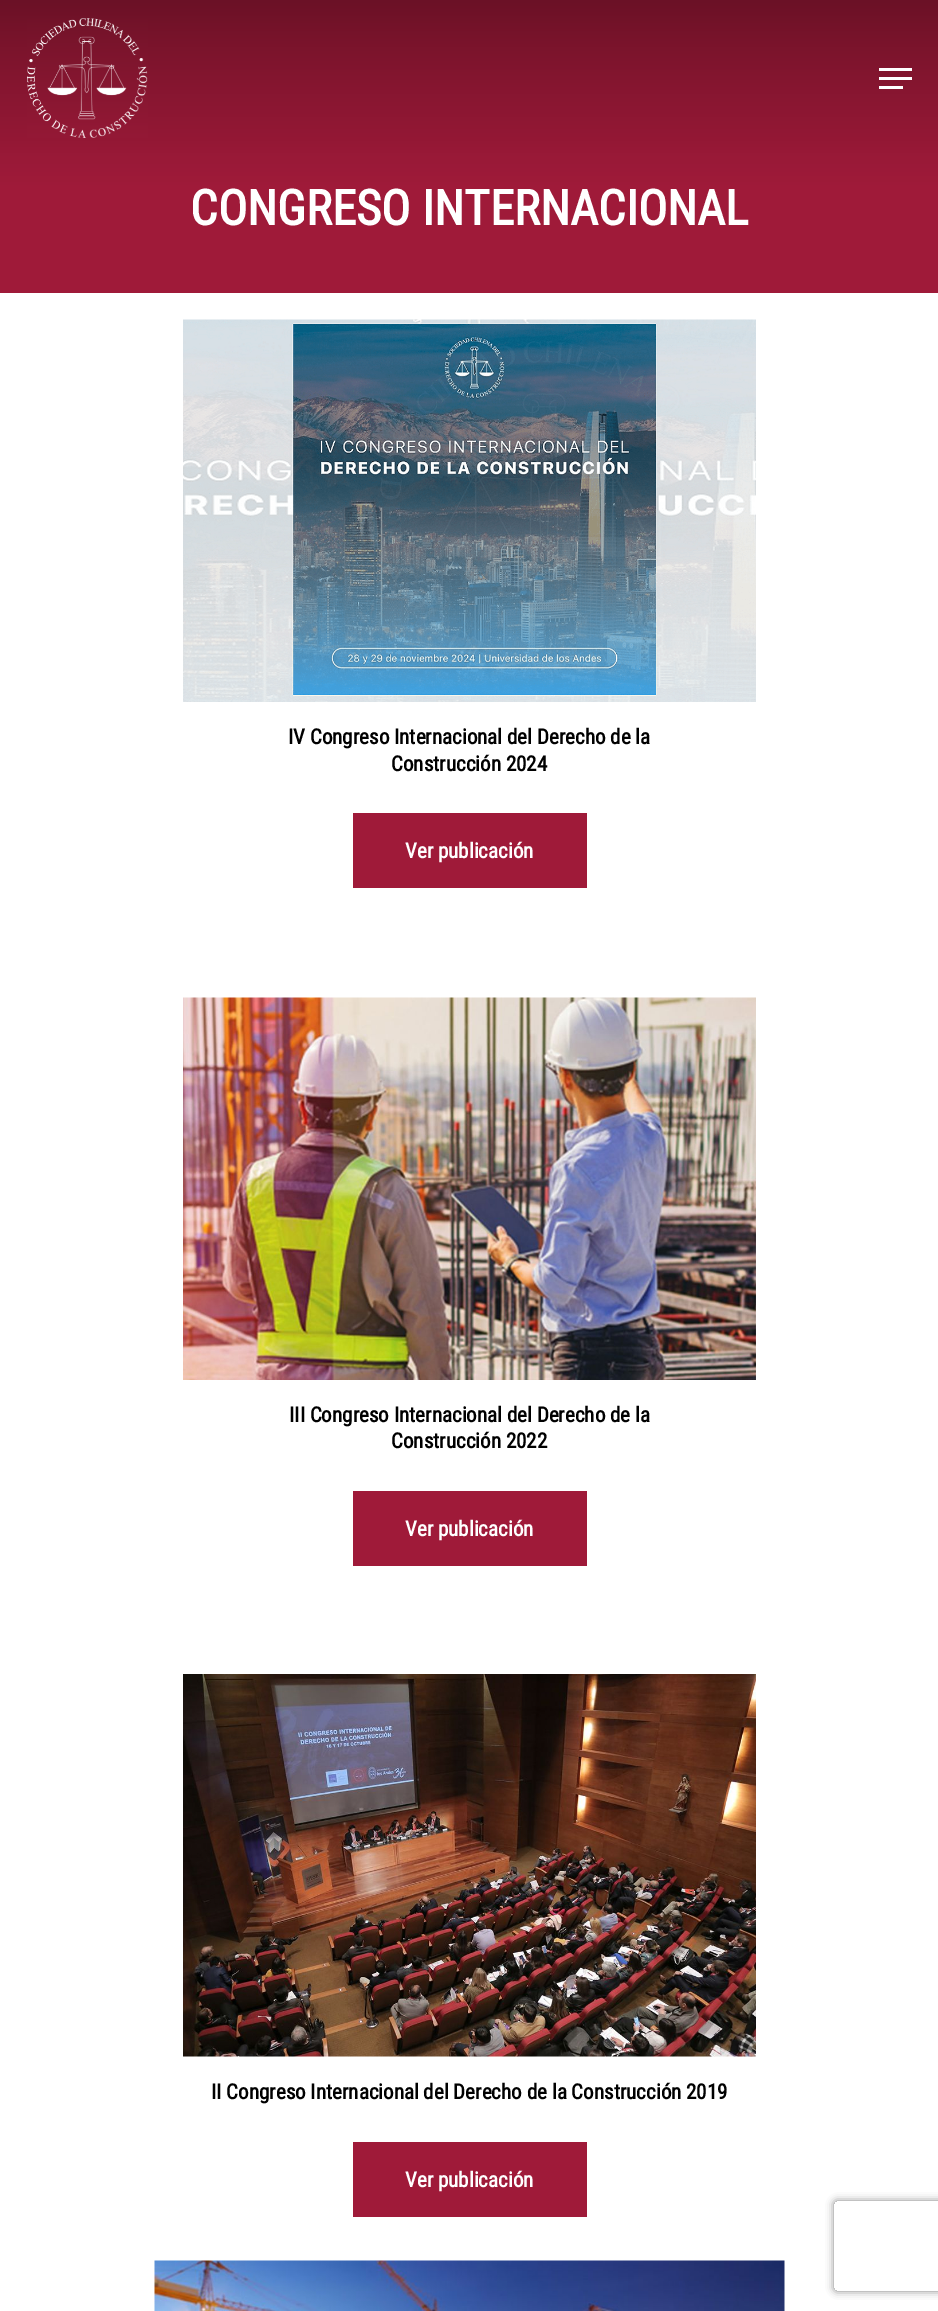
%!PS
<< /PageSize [938 2311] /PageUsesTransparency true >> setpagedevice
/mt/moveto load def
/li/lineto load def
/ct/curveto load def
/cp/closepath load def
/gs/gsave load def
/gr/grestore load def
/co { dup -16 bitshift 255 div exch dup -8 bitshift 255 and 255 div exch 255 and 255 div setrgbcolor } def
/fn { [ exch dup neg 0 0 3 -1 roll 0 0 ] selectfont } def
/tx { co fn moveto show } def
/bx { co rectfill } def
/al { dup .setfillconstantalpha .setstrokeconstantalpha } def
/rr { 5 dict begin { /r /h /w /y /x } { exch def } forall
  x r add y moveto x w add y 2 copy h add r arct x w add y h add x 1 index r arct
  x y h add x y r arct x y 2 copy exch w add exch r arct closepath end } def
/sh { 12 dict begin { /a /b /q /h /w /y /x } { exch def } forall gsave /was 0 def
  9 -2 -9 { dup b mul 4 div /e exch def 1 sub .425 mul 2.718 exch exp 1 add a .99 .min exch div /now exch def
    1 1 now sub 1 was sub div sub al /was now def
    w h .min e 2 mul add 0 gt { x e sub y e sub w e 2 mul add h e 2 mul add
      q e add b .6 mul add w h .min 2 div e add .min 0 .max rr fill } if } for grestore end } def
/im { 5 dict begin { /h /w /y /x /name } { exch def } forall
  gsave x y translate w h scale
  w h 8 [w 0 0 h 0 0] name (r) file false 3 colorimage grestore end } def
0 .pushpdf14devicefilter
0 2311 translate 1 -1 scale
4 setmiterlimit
0 0 938 2311 16#FFFFFF bx
gs 0 0 mt 938 0 li 938 188 li 0 188 li cp clip newpath
<< /ShadingType 2 /ColorSpace /DeviceRGB /Coords [470 188 470 0] /Extend [true true] /Function << /FunctionType 3 /Domain [0 1] /Functions [<< /FunctionType 2 /Domain [0 1] /C0 [.624 .102 .224] /C1 [.624 .102 .224] /N 1 >> << /FunctionType 2 /Domain [0 1] /C0 [.624 .102 .224] /C1 [.6 .098 .216] /N 1 >> << /FunctionType 2 /Domain [0 1] /C0 [.6 .098 .216] /C1 [.482 .078 .173] /N 1 >> << /FunctionType 2 /Domain [0 1] /C0 [.482 .078 .173] /C1 [.42 .067 .149] /N 1 >>] /Bounds [.01 .16 .75] /Encode [0 1 0 1 0 1 0 1] >> >> shfill gr
(media/1.raw) 27 18 121 120 im
879 68 33 3 16#FFFFFF bx
879 86 24 3 16#FFFFFF bx
879 77 33 3 16#FFFFFF bx
0 188 938 105 16#9F1A39 bx
(media/2.raw) 183 319 573 383 im
353 813 234 75 16#9F1A39 bx
(media/3.raw) 183 997 573 383 im
353 1491 234 75 16#9F1A39 bx
(media/4.raw) 183 1674 573 383 im
353 2142 234 75 16#9F1A39 bx
(media/5.raw) 154 2260 631 51 im
gs
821 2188 mt 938 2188 li 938 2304 li 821 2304 li cp 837 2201 mt 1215 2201 li 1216.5 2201 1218 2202.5 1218 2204 ct 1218 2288 li 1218 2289.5 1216.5 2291 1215 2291 ct 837 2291 li 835.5 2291 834 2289.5 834 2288 ct 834 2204 li 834 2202.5 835.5 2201 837 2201 ct cp eoclip newpath
16#808080 co
834 2201 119 90 3 4 1 sh
gr
(CONGRESO INTERNACIONAL) 190 225 /RobotoCondensed-Bold 48.75 16#FFFFFF tx
(IV Congreso Internacional del Derecho de la) 288 744 /RobotoCondensed-Bold 21 16#000000 tx
(Construcción 2024) 391 771 /RobotoCondensed-Bold 21 16#000000 tx
(Ver publicación) 405 858 /RobotoCondensed-Bold 21 16#FFFFFF tx
(III Congreso Internacional del Derecho de la) 289 1422 /RobotoCondensed-Bold 21 16#000000 tx
(Construcción 2022) 391 1448 /RobotoCondensed-Bold 21 16#000000 tx
(Ver publicación) 405 1536 /RobotoCondensed-Bold 21 16#FFFFFF tx
(II Congreso Internacional del Derecho de la Construcción 2019) 211 2099 /RobotoCondensed-Bold 21 16#000000 tx
(Ver publicación) 405 2187 /RobotoCondensed-Bold 21 16#FFFFFF tx
.poppdf14devicefilter showpage
